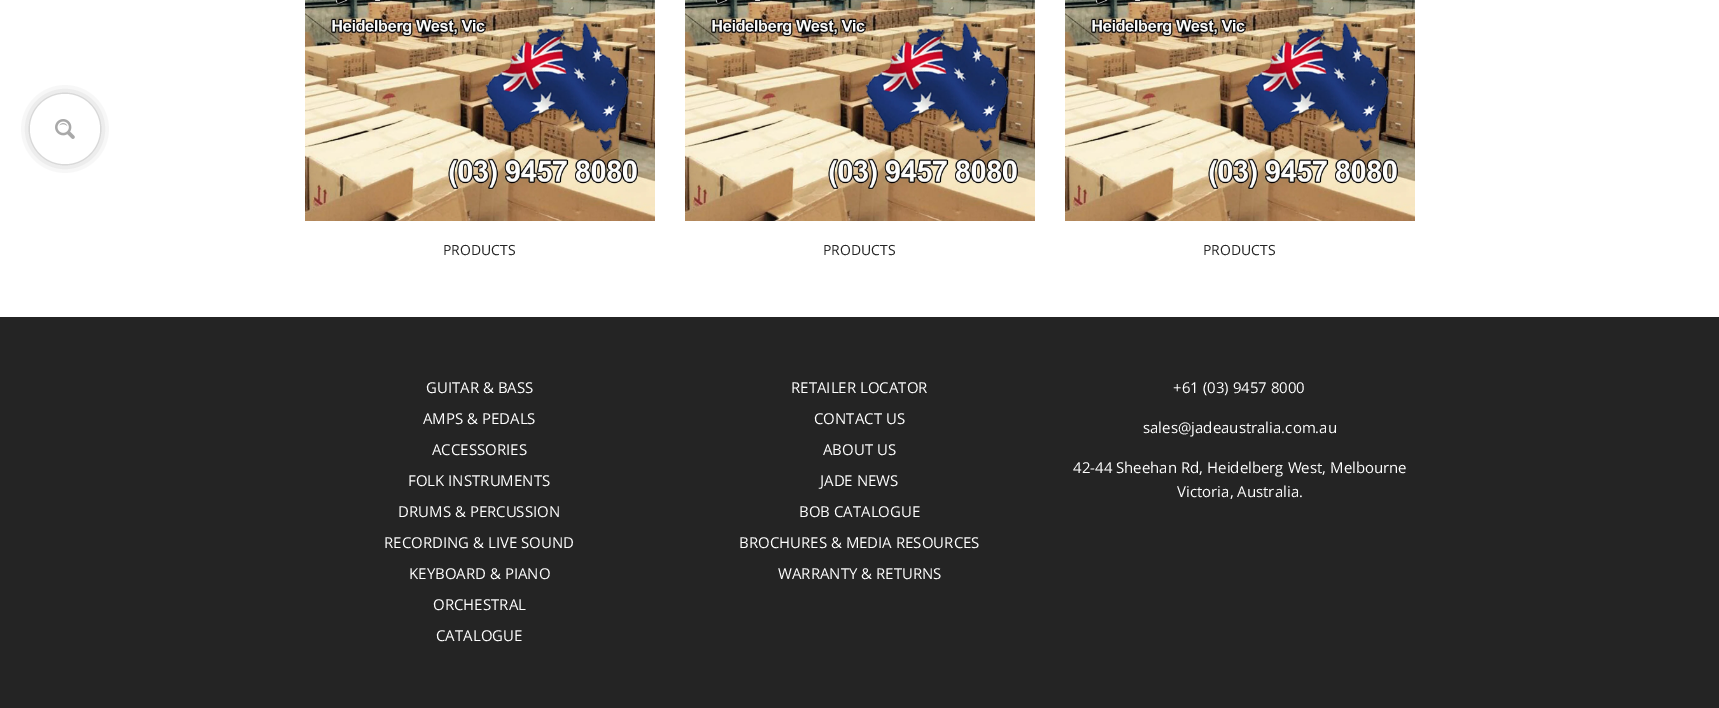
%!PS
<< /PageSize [1719 708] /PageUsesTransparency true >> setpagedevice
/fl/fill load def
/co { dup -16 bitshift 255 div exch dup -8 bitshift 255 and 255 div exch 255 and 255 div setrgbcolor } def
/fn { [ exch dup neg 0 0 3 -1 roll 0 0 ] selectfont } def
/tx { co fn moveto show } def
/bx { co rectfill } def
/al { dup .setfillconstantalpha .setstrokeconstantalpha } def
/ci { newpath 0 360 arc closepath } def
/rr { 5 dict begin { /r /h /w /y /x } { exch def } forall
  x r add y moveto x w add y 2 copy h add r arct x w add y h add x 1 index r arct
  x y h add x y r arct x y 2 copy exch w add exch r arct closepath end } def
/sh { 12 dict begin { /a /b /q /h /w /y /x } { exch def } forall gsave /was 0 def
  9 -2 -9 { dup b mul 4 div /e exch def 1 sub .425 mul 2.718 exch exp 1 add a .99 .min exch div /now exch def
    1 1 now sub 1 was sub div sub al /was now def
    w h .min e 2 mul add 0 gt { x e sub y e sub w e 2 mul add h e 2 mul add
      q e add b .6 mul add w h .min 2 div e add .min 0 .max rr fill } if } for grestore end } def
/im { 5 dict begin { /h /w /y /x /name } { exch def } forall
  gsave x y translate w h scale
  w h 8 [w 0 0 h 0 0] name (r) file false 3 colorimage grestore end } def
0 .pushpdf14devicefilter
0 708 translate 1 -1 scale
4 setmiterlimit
0 0 1719 708 16#FFFFFF bx
16#000000 co
38 102 54 54 27 7.5 1 sh
16#FFFFFF co
65 129 35 ci fl
(media/1.raw) 55 119 20 20 im
(media/2.raw) 305 0 350 221 im
(media/3.raw) 685 0 350 221 im
(media/2.raw) 1065 0 350 221 im
0 317 1719 391 16#242424 bx
(PRODUCTS) 443 255 /OpenSans-Regular 14 16#242424 tx
(PRODUCTS) 823 255 /OpenSans-Regular 14 16#242424 tx
(PRODUCTS) 1203 255 /OpenSans-Regular 14 16#242424 tx
(GUITAR & BASS) 426 393 /OpenSans-Regular 15 16#FFFFFF tx
(AMPS & PEDALS) 423 424 /OpenSans-Regular 15 16#FFFFFF tx
(ACCESSORIES) 432 455 /OpenSans-Regular 15 16#FFFFFF tx
(FOLK INSTRUMENTS) 408 486 /OpenSans-Regular 15 16#FFFFFF tx
(DRUMS & PERCUSSION) 398 517 /OpenSans-Regular 15 16#FFFFFF tx
(RECORDING & LIVE SOUND) 384 548 /OpenSans-Regular 15 16#FFFFFF tx
(KEYBOARD & PIANO) 409 579 /OpenSans-Regular 15 16#FFFFFF tx
(ORCHESTRAL) 433 610 /OpenSans-Regular 15 16#FFFFFF tx
(CATALOGUE) 436 641 /OpenSans-Regular 15 16#FFFFFF tx
(RETAILER LOCATOR) 791 393 /OpenSans-Regular 15 16#FFFFFF tx
(CONTACT US) 814 424 /OpenSans-Regular 15 16#FFFFFF tx
(ABOUT US) 823 455 /OpenSans-Regular 15 16#FFFFFF tx
(JADE NEWS) 820 486 /OpenSans-Regular 15 16#FFFFFF tx
(BOB CATALOGUE) 799 517 /OpenSans-Regular 15 16#FFFFFF tx
(BROCHURES & MEDIA RESOURCES) 739 548 /OpenSans-Regular 15 16#FFFFFF tx
(WARRANTY & RETURNS) 778 579 /OpenSans-Regular 15 16#FFFFFF tx
(+61 \(03\) 9457 8000) 1173 393 /OpenSans-Regular 15 16#FFFFFF tx
(sales@jadeaustralia.com.au) 1143 433 /OpenSans-Regular 15 16#FFFFFF tx
(42-44 Sheehan Rd, Heidelberg West, Melbourne) 1073 473 /OpenSans-Regular 15 16#FFFFFF tx
(Victoria, Australia.) 1177 497 /OpenSans-Regular 15 16#FFFFFF tx
.poppdf14devicefilter showpage
